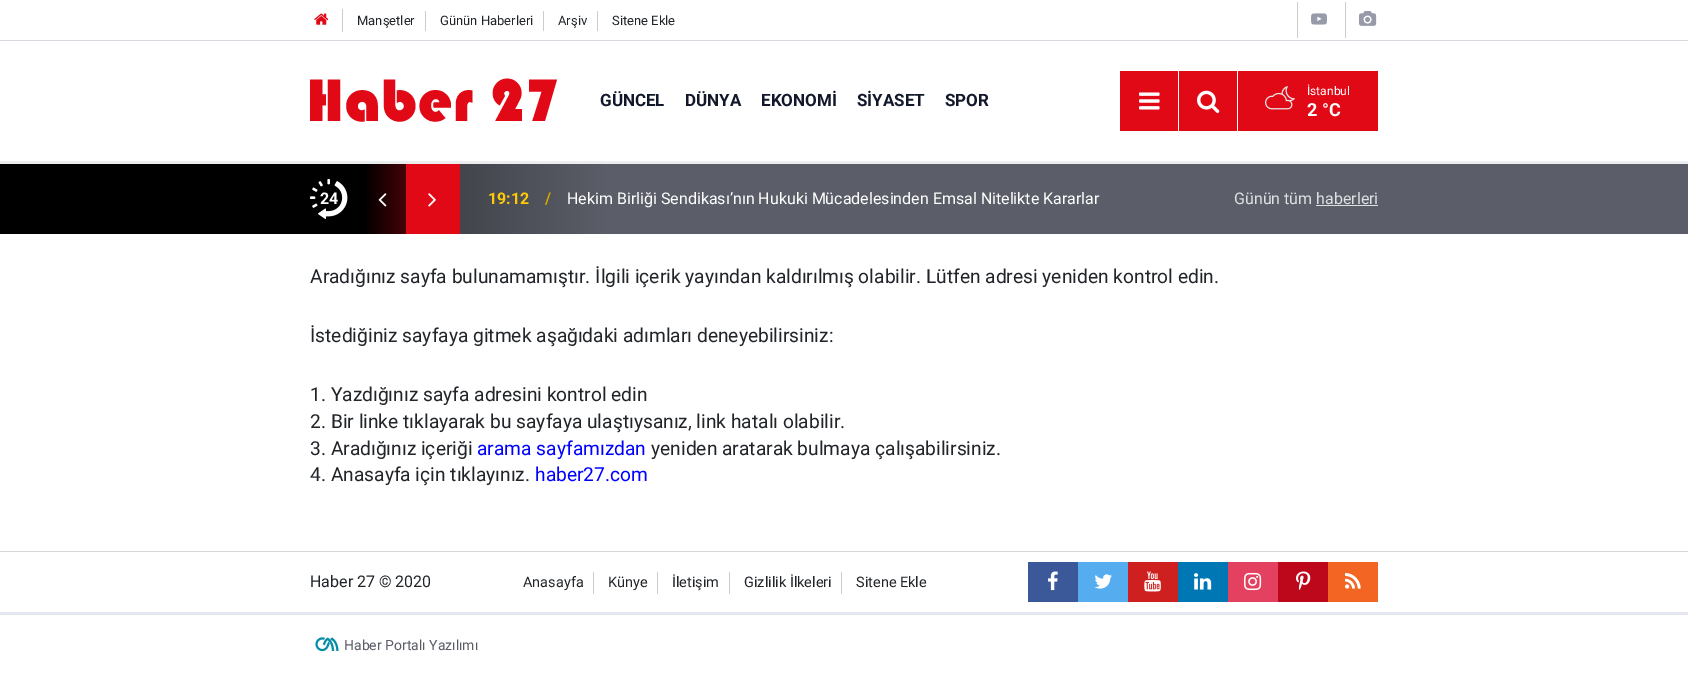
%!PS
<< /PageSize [1688 697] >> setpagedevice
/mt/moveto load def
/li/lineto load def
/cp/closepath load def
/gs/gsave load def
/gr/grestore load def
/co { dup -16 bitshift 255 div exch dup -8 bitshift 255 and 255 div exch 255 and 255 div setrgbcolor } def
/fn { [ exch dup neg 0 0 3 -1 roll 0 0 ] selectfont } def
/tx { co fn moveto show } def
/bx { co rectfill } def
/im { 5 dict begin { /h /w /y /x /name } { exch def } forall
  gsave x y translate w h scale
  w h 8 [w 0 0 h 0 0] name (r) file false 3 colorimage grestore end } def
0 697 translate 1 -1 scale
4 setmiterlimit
0 0 1688 697 16#FFFFFF bx
342 9 1 23 16#CCCCCC bx
(media/1.raw) 314 13 15 12 im
425 11 1 20 16#CCCCCC bx
543 11 1 20 16#CCCCCC bx
597 11 1 20 16#CCCCCC bx
1297 2 1 36 16#CCCCCC bx
(media/2.raw) 1311 13 16 12 im
1345 2 1 36 16#CCCCCC bx
(media/3.raw) 1359 11 18 15 im
0 40 1688 1 16#D7DAE1 bx
0 161 1688 3 16#ECEDEE bx
(media/4.raw) 310 78 247 44 im
1120 71 58 60 16#E20916 bx
(media/5.raw) 1139 92 21 18 im
1179 71 58 60 16#E20916 bx
(media/6.raw) 1197 90 23 23 im
1238 71 140 60 16#E20916 bx
(media/7.raw) 1265 86 30 24 im
0 164 310 70 16#000000 bx
1378 164 310 70 16#5B5E68 bx
gs 310 164 mt 1378 164 li 1378 234 li 310 234 li cp clip newpath
<< /ShadingType 2 /ColorSpace /DeviceRGB /Coords [310 199 1378 199] /Extend [true true] /Function << /FunctionType 3 /Domain [0 1] /Functions [<< /FunctionType 2 /Domain [0 1] /C0 [0 0 0] /C1 [0 0 0] /N 1 >> << /FunctionType 2 /Domain [0 1] /C0 [0 0 0] /C1 [.267 .012 .027] /N 1 >> << /FunctionType 2 /Domain [0 1] /C0 [.886 .035 .086] /C1 [.886 .035 .086] /N 1 >> << /FunctionType 2 /Domain [0 1] /C0 [.263 .271 .302] /C1 [.357 .369 .408] /N 1 >> << /FunctionType 2 /Domain [0 1] /C0 [.357 .369 .408] /C1 [.357 .369 .408] /N 1 >>] /Bounds [.05 .09 .14 .28] /Encode [0 1 0 1 0 1 0 1 0 1] >> >> shfill gr
(media/8.raw) 310 179 38 40 im
(media/9.raw) 378 193 9 14 im
(media/10.raw) 428 193 8 14 im
1316 205 62 1 16#DEDFE1 bx
0 551 1688 1 16#D6D7D9 bx
0 612 1688 3 16#E4E7F0 bx
593 572 1 22 16#CCCCCC bx
657 572 1 22 16#CCCCCC bx
729 572 1 22 16#CCCCCC bx
841 572 1 22 16#CCCCCC bx
1028 562 50 40 16#3B5999 bx
(media/11.raw) 1048 571 10 20 im
1078 562 50 40 16#55ACEE bx
(media/12.raw) 1094 574 18 15 im
1128 562 50 40 16#CD201F bx
(media/13.raw) 1144 571 17 21 im
1178 562 50 40 16#0077B5 bx
(media/14.raw) 1194 573 18 17 im
1228 562 50 40 16#E4405F bx
(media/15.raw) 1244 572 18 19 im
1278 562 50 40 16#BD081C bx
(media/16.raw) 1296 571 15 19 im
1328 562 50 40 16#F26522 bx
(media/17.raw) 1345 572 16 17 im
(media/18.raw) 315 637 24 15 im
(Manşetler) 357 25 /Roboto-Regular 13 16#212529 tx
(Günün Haberleri) 440 25 /Roboto-Regular 13 16#212529 tx
(Arşiv) 558 25 /Roboto-Regular 13 16#212529 tx
(Sitene Ekle) 612 25 /Roboto-Regular 13 16#212529 tx
(GÜNCEL) 600 106 /Roboto-Bold 17 16#12182A tx
(DÜNYA) 685 106 /Roboto-Bold 17 16#12182A tx
(EKONOMİ) 761 106 /Roboto-Bold 17 16#12182A tx
(SİYASET) 857 106 /Roboto-Bold 17 16#12182A tx
(SPOR) 945 106 /Roboto-Bold 17 16#12182A tx
(İstanbul) 1307 95 /Roboto-Regular 12 16#FFFFFF tx
(2 °C) 1307 116 /Roboto-Bold 18 16#FFFFFF tx
(24) 320 204 /Roboto-Bold 16 16#FFFFFF tx
(19:12) 488 204 /Roboto-Bold 16 16#FFCB05 tx
(/) 545 204 /Roboto-Bold 16 16#D1A600 tx
(Hekim Birliği Sendikası’nın Hukuki Mücadelesinden Emsal Nitelikte Kararlar) 567 204 /Roboto-Regular 16 16#FFFFFF tx
(Günün tüm haberleri) 1234 204 /Roboto-Regular 16 16#DEDFE1 tx
(Aradığınız sayfa bulunamamıştır. İlgili içerik yayından kaldırılmış olabilir. Lütfen adresi yeniden kontrol edin.) 310 283 /Roboto-Regular 19.2 16#212529 tx
(İstediğiniz sayfaya gitmek aşağıdaki adımları deneyebilirsiniz:) 310 342 /Roboto-Regular 19.2 16#212529 tx
(1. Yazdığınız sayfa adresini kontrol edin) 310 401 /Roboto-Regular 19.2 16#212529 tx
(2. Bir linke tıklayarak bu sayfaya ulaştıysanız, link hatalı olabilir.) 310 428 /Roboto-Regular 19.2 16#212529 tx
(3. Aradığınız içeriği) 310 455 /Roboto-Regular 19.2 16#212529 tx
(arama sayfamızdan) 477 455 /Roboto-Regular 19.2 16#0000FF tx
(yeniden aratarak bulmaya çalışabilirsiniz.) 651 455 /Roboto-Regular 19.2 16#212529 tx
(4. Anasayfa için tıklayınız.) 310 481 /Roboto-Regular 19.2 16#212529 tx
(haber27.com) 535 481 /Roboto-Regular 19.2 16#0000FF tx
(Haber 27 © 2020) 310 587 /Roboto-Regular 16 16#212529 tx
(Anasayfa) 523 587 /Roboto-Regular 14.5 16#212529 tx
(Künye) 608 587 /Roboto-Regular 14.5 16#212529 tx
(İletişim) 672 587 /Roboto-Regular 14.5 16#212529 tx
(Gizlilik İlkeleri) 744 587 /Roboto-Regular 14.5 16#212529 tx
(Sitene Ekle) 856 587 /Roboto-Regular 14.5 16#212529 tx
(Haber Portalı Yazılımı) 344 650 /Roboto-Regular 14 16#5A5C67 tx
showpage
